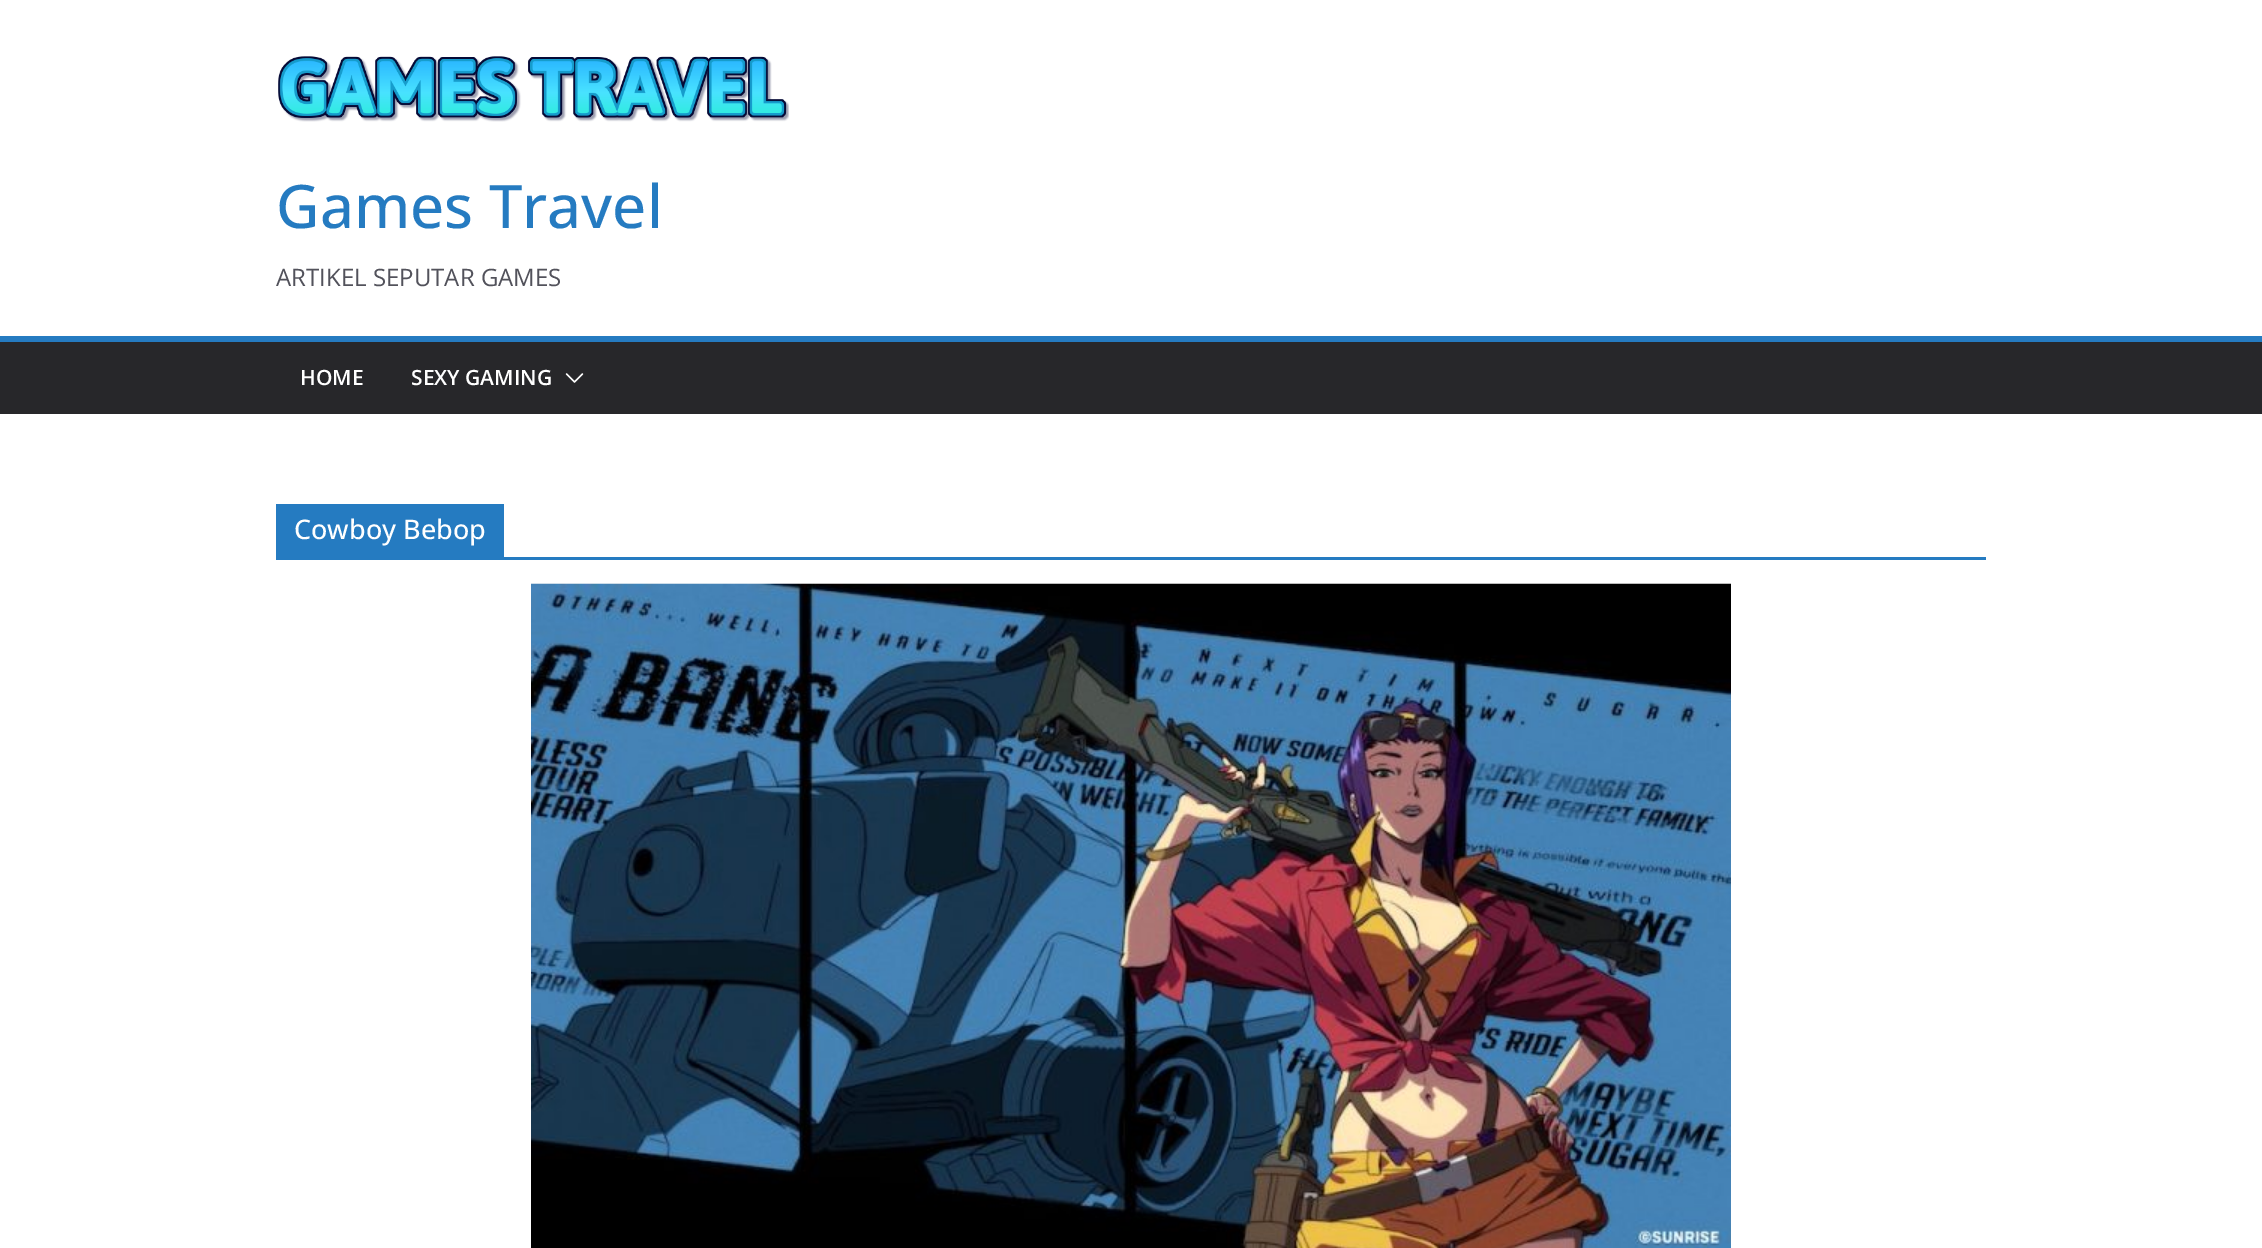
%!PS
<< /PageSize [2262 1248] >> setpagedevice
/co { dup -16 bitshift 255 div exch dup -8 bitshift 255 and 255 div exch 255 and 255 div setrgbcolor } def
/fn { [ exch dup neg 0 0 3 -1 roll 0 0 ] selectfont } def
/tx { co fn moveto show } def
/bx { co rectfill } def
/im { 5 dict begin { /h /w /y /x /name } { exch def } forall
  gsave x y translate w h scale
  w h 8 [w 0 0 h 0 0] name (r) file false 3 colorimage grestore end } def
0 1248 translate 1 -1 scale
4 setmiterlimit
0 0 2262 1248 16#FFFFFF bx
(media/1.raw) 278 56 511 66 im
0 342 2262 72 16#27272A bx
0 336 2262 6 16#257BC1 bx
(media/2.raw) 565 373 19 10 im
276 557 1710 3 16#257BC1 bx
276 504 228 53 16#257BC1 bx
(media/3.raw) 531 583 1200 665 im
(Games Travel) 276 228 /OpenSans-Medium 60 16#257BC1 tx
(ARTIKEL SEPUTAR GAMES) 276 286 /OpenSans-Regular 24 16#52525B tx
(HOME) 300 385 /OpenSans-SemiBold 21 16#FFFFFF tx
(SEXY GAMING) 411 385 /OpenSans-SemiBold 21 16#FFFFFF tx
(Cowboy Bebop) 294 539 /OpenSans-Medium 27 16#FFFFFF tx
showpage
